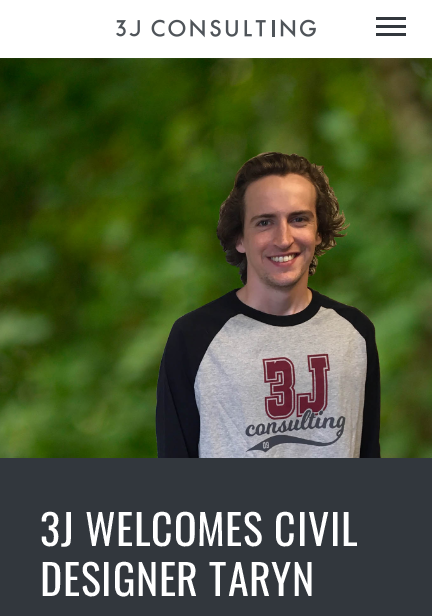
%!PS
<< /PageSize [432 616] >> setpagedevice
/mt/moveto load def
/co { dup -16 bitshift 255 div exch dup -8 bitshift 255 and 255 div exch 255 and 255 div setrgbcolor } def
/fn { [ exch dup neg 0 0 3 -1 roll 0 0 ] selectfont } def
/bx { co rectfill } def
/im { 5 dict begin { /h /w /y /x /name } { exch def } forall
  gsave x y translate w h scale
  w h 8 [w 0 0 h 0 0] name (r) file false 3 colorimage grestore end } def
0 616 translate 1 -1 scale
4 setmiterlimit
0 0 432 616 16#FFFFFF bx
(media/1.raw) 116 19 200 19 im
376 17 30 3 16#32373D bx
376 25 30 3 16#32373D bx
376 33 30 3 16#32373D bx
(media/2.raw) 0 58 432 400 im
0 458 432 158 16#32373D bx
/Oswald-Regular 42 fn
16#FFFFFF co
40 546 mt .75 0 (3J WELCOMES CIVIL) ashow
40 596 mt .75 0 (DESIGNER TARYN) ashow
showpage
